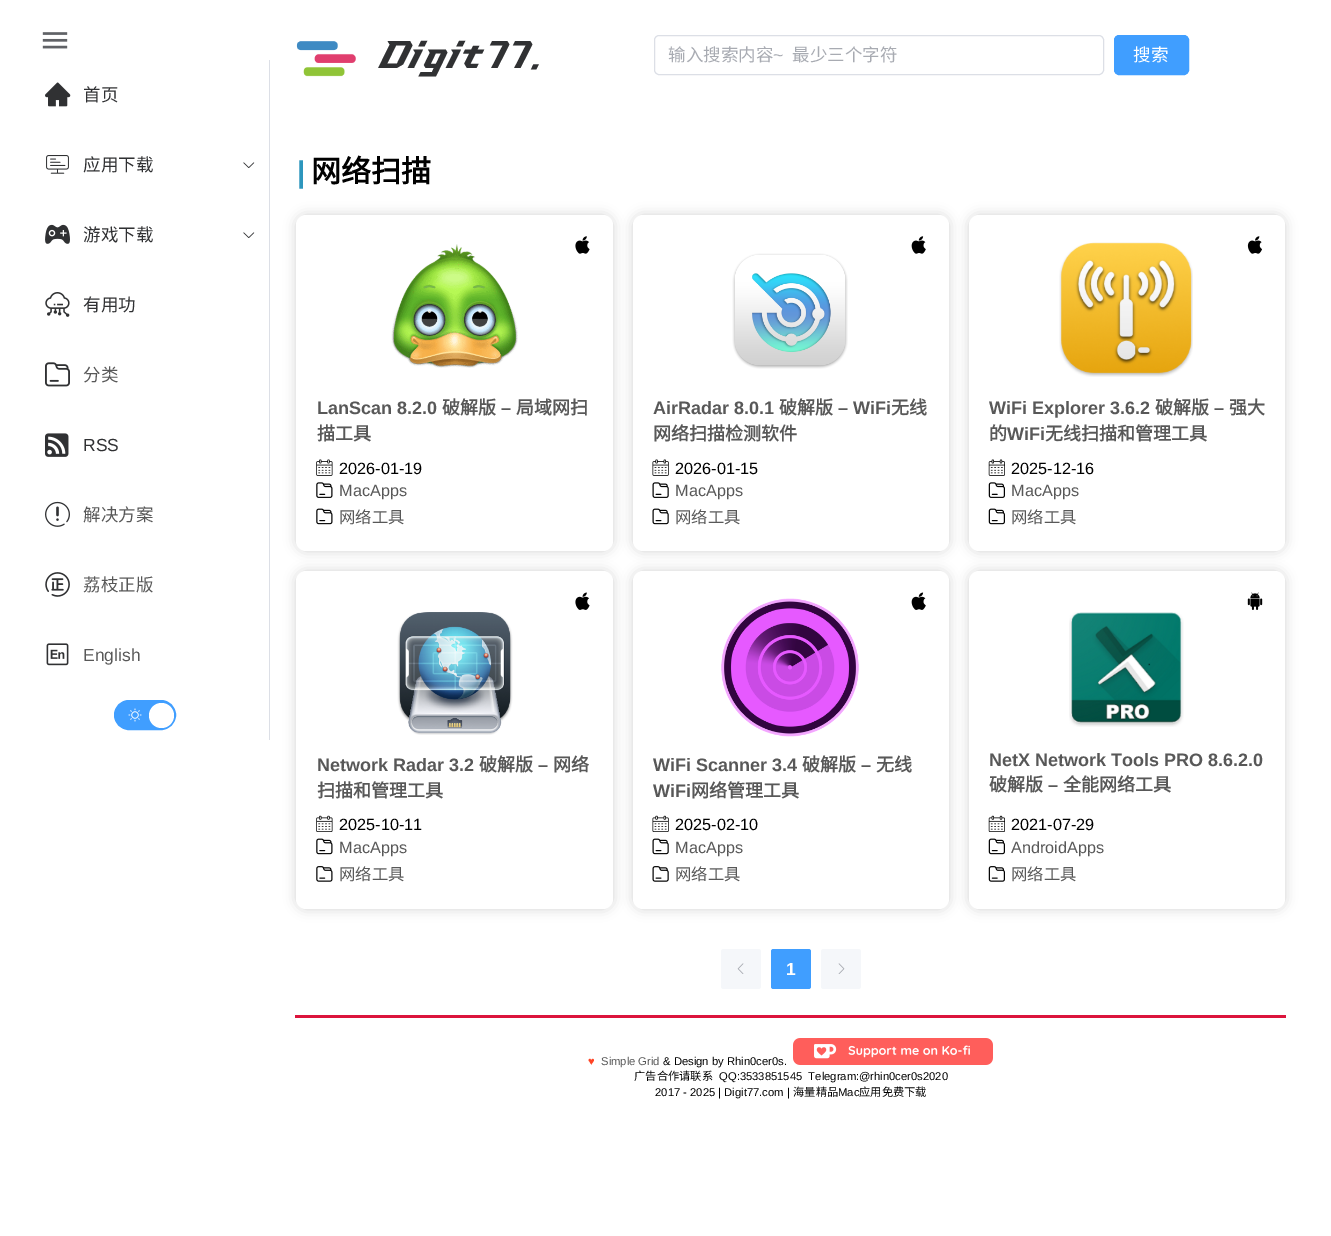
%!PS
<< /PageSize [1331 1236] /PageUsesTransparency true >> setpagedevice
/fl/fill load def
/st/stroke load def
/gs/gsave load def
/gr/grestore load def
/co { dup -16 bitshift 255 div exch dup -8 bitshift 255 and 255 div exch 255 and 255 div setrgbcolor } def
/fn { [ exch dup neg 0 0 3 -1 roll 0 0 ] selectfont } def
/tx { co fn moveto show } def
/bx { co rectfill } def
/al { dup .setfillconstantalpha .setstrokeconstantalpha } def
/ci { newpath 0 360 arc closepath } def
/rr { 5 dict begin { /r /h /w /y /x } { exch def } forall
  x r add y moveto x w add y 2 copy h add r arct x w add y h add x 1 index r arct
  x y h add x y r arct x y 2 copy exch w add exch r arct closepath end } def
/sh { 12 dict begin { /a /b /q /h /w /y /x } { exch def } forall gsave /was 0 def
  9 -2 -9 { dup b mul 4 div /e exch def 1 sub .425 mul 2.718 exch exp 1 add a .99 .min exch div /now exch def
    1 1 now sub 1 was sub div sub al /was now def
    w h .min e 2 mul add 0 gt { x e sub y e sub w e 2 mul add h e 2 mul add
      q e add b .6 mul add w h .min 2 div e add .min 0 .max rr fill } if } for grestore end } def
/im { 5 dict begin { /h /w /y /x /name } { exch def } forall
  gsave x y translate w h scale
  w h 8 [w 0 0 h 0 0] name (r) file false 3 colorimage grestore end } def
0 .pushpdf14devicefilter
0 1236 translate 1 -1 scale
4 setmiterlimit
0 0 1331 1236 16#FFFFFF bx
(media/1.raw) 42 32 26 17 im
269 60 1 680 16#DCDFE6 bx
(media/2.raw) 45 82 26 25 im
(media/3.raw) 46 155 23 19 im
(media/4.raw) 243 162 12 6 im
(media/5.raw) 45 224 25 20 im
(media/4.raw) 243 232 12 6 im
(media/6.raw) 45 292 25 25 im
(media/7.raw) 45 362 25 25 im
(media/8.raw) 45 433 24 24 im
(media/9.raw) 45 501 25 26 im
(media/10.raw) 45 572 25 25 im
(media/11.raw) 46 643 23 23 im
16#409EFF co
114.5 700.5 61 29 14.5 rr gs fl gr
st
(media/12.raw) 128 708 14 14 im
16#FFFFFF co
161.5 715.5 12.5 ci fl
(media/13.raw) 296 41 60 36 im
16#DCDFE6 co
654.5 35.5 449 39 4.5 rr st
16#409EFF co
1114.5 35.5 74 39 4.5 rr gs fl gr
st
16#D2D2D2 co
296 215 317 336 10 6 1 sh
16#FFFFFF co
296 215 317 336 10 rr fl
(media/14.raw) 391 244 127 124 im
(media/15.raw) 575 236 15 18 im
(media/16.raw) 316 459 17 17 im
(media/17.raw) 316 482 17 16 im
(media/18.raw) 316 508 17 17 im
16#D2D2D2 co
633 215 316 336 10 6 1 sh
16#FFFFFF co
633 215 316 336 10 rr fl
(media/19.raw) 911 236 15 18 im
(media/20.raw) 732 253 116 116 im
(media/21.raw) 652 459 17 17 im
(media/22.raw) 652 482 17 16 im
(media/23.raw) 652 508 17 17 im
16#D2D2D2 co
969 215 316 336 10 6 1 sh
16#FFFFFF co
969 215 316 336 10 rr fl
(media/24.raw) 1059 242 134 135 im
(media/25.raw) 1247 236 15 18 im
(media/26.raw) 988 459 17 17 im
(media/27.raw) 988 482 17 16 im
(media/28.raw) 988 508 17 17 im
16#D2D2D2 co
296 571 317 338 10 6 1 sh
16#FFFFFF co
296 571 317 338 10 rr fl
(media/29.raw) 575 592 15 18 im
(media/30.raw) 397 612 116 123 im
(media/31.raw) 316 815 17 17 im
(media/18.raw) 316 838 17 17 im
(media/32.raw) 316 866 17 16 im
16#D2D2D2 co
633 571 316 338 10 6 1 sh
16#FFFFFF co
633 571 316 338 10 rr fl
(media/33.raw) 721 598 138 139 im
(media/34.raw) 911 592 15 18 im
(media/35.raw) 652 815 17 17 im
(media/23.raw) 652 838 17 17 im
(media/36.raw) 652 866 17 16 im
16#D2D2D2 co
969 571 316 338 10 6 1 sh
16#FFFFFF co
969 571 316 338 10 rr fl
(media/37.raw) 1247 592 16 18 im
(media/38.raw) 1069 612 115 115 im
(media/39.raw) 988 815 17 17 im
(media/28.raw) 988 838 17 17 im
(media/40.raw) 988 866 17 16 im
16#F5F7FA co
721 949 40 40 2.5 rr fl
(media/41.raw) 737 963 7 11 im
16#409EFF co
771 949 40 40 2.5 rr fl
16#F5F7FA co
821 949 40 40 2.5 rr fl
(media/42.raw) 838 963 7 11 im
295 1015 991 3 16#DC143C bx
(media/43.raw) 793 1038 200 27 im
(首页) 83 101 /NotoSansCJKSC-Regular 17.5 16#303133 tx
(应用下载) 83 171 /NotoSansCJKSC-Regular 17.5 16#303133 tx
(游戏下载) 83 241 /NotoSansCJKSC-Regular 17.5 16#303133 tx
(有用功) 83 311 /NotoSansCJKSC-Regular 17.5 16#303133 tx
(分类) 83 381 /NotoSansCJKSC-Regular 17.5 16#585858 tx
(RSS) 83 451 /LiberationSans-Regular 17.5 16#303133 tx
(解决方案) 83 521 /NotoSansCJKSC-Regular 17.5 16#585858 tx
(荔枝正版) 83 591 /NotoSansCJKSC-Regular 17.5 16#585858 tx
(English) 83 661 /LiberationSans-Regular 17.5 16#585858 tx
(Digit77.) 378 68 /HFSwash-Regular 37.5 16#303133 tx
(输入搜索内容) 668 61 /NotoSansCJKSC-Regular 17.5 16#A8ABB2 tx
(~) 773 61 /LiberationSans-Regular 17.5 16#A8ABB2 tx
(最少三个字符) 792 61 /NotoSansCJKSC-Regular 17.5 16#A8ABB2 tx
(搜索) 1133 61 /NotoSansCJKSC-Regular 17.5 16#FFFFFF tx
(|) 297 182 /LiberationSans-Bold 30 16#2D96BD tx
(网络扫描) 311 182 /NotoSansCJKSC-Bold 30 16#000000 tx
(LanScan 8.2.0) 317 414 /LiberationSans-Bold 18 16#585858 tx
(破解版) 442 414 /NotoSansCJKSC-Bold 18 16#585858 tx
(–) 501 414 /LiberationSans-Bold 18 16#585858 tx
(局域网扫) 516 414 /NotoSansCJKSC-Bold 18 16#585858 tx
(描工具) 317 440 /NotoSansCJKSC-Bold 18 16#585858 tx
(2026-01-19) 339 474 /LiberationSans-Regular 16.25 16#000000 tx
(MacApps) 339 496 /LiberationSans-Regular 16.25 16#585858 tx
(网络工具) 339 523 /NotoSansCJKSC-Regular 16.25 16#585858 tx
(AirRadar 8.0.1) 653 414 /LiberationSans-Bold 18 16#585858 tx
(破解版) 779 414 /NotoSansCJKSC-Bold 18 16#585858 tx
(– WiFi) 838 414 /LiberationSans-Bold 18 16#585858 tx
(无线) 891 414 /NotoSansCJKSC-Bold 18 16#585858 tx
(网络扫描检测软件) 653 440 /NotoSansCJKSC-Bold 18 16#585858 tx
(2026-01-15) 675 474 /LiberationSans-Regular 16.25 16#000000 tx
(MacApps) 675 496 /LiberationSans-Regular 16.25 16#585858 tx
(网络工具) 675 523 /NotoSansCJKSC-Regular 16.25 16#585858 tx
(WiFi Explorer 3.6.2) 989 414 /LiberationSans-Bold 18 16#585858 tx
(破解版) 1155 414 /NotoSansCJKSC-Bold 18 16#585858 tx
(–) 1214 414 /LiberationSans-Bold 18 16#585858 tx
(强大) 1229 414 /NotoSansCJKSC-Bold 18 16#585858 tx
(的) 989 440 /NotoSansCJKSC-Bold 18 16#585858 tx
(WiFi) 1007 440 /LiberationSans-Bold 18 16#585858 tx
(无线扫描和管理工具) 1045 440 /NotoSansCJKSC-Bold 18 16#585858 tx
(2025-12-16) 1011 474 /LiberationSans-Regular 16.25 16#000000 tx
(MacApps) 1011 496 /LiberationSans-Regular 16.25 16#585858 tx
(网络工具) 1011 523 /NotoSansCJKSC-Regular 16.25 16#585858 tx
(Network Radar 3.2) 317 771 /LiberationSans-Bold 18 16#585858 tx
(破解版) 479 771 /NotoSansCJKSC-Bold 18 16#585858 tx
(–) 538 771 /LiberationSans-Bold 18 16#585858 tx
(网络) 553 771 /NotoSansCJKSC-Bold 18 16#585858 tx
(扫描和管理工具) 317 797 /NotoSansCJKSC-Bold 18 16#585858 tx
(2025-10-11) 339 830 /LiberationSans-Regular 16.25 16#000000 tx
(MacApps) 339 853 /LiberationSans-Regular 16.25 16#585858 tx
(网络工具) 339 880 /NotoSansCJKSC-Regular 16.25 16#585858 tx
(WiFi Scanner 3.4) 653 771 /LiberationSans-Bold 18 16#585858 tx
(破解版) 802 771 /NotoSansCJKSC-Bold 18 16#585858 tx
(–) 861 771 /LiberationSans-Bold 18 16#585858 tx
(无线) 876 771 /NotoSansCJKSC-Bold 18 16#585858 tx
(WiFi) 653 797 /LiberationSans-Bold 18 16#585858 tx
(网络管理工具) 691 797 /NotoSansCJKSC-Bold 18 16#585858 tx
(2025-02-10) 675 830 /LiberationSans-Regular 16.25 16#000000 tx
(MacApps) 675 853 /LiberationSans-Regular 16.25 16#585858 tx
(网络工具) 675 880 /NotoSansCJKSC-Regular 16.25 16#585858 tx
(NetX Network Tools PRO 8.6.2.0) 989 766 /LiberationSans-Bold 18 16#585858 tx
(破解版) 989 791 /NotoSansCJKSC-Bold 18 16#585858 tx
(–) 1048 791 /LiberationSans-Bold 18 16#585858 tx
(全能网络工具) 1063 791 /NotoSansCJKSC-Bold 18 16#585858 tx
(2021-07-29) 1011 830 /LiberationSans-Regular 16.25 16#000000 tx
(AndroidApps) 1011 853 /LiberationSans-Regular 16.25 16#585858 tx
(网络工具) 1011 880 /NotoSansCJKSC-Regular 16.25 16#585858 tx
(1) 786 975 /LiberationSans-Bold 17.5 16#FFFFFF tx
(♥) 588 1065 /LiberationSans-Bold 11.25 16#FF4425 tx
(Simple Grid) 601 1065 /LiberationSans-Regular 11.25 16#585858 tx
(& Design by Rhin0cer0s.) 663 1065 /LiberationSans-Regular 11.25 16#000000 tx
(广告合作请联系) 634 1080 /NotoSansCJKSC-Regular 11.25 16#000000 tx
(QQ:3533851545  Telegram:@rhin0cer0s2020) 719 1080 /LiberationSans-Regular 11.25 16#000000 tx
(2017 - 2025 | Digit77.com |) 655 1096 /LiberationSans-Regular 11.25 16#000000 tx
(海量精品) 793 1096 /NotoSansCJKSC-Regular 11.25 16#000000 tx
(Mac) 838 1096 /LiberationSans-Regular 11.25 16#000000 tx
(应用免费下载) 859 1096 /NotoSansCJKSC-Regular 11.25 16#000000 tx
.poppdf14devicefilter showpage
